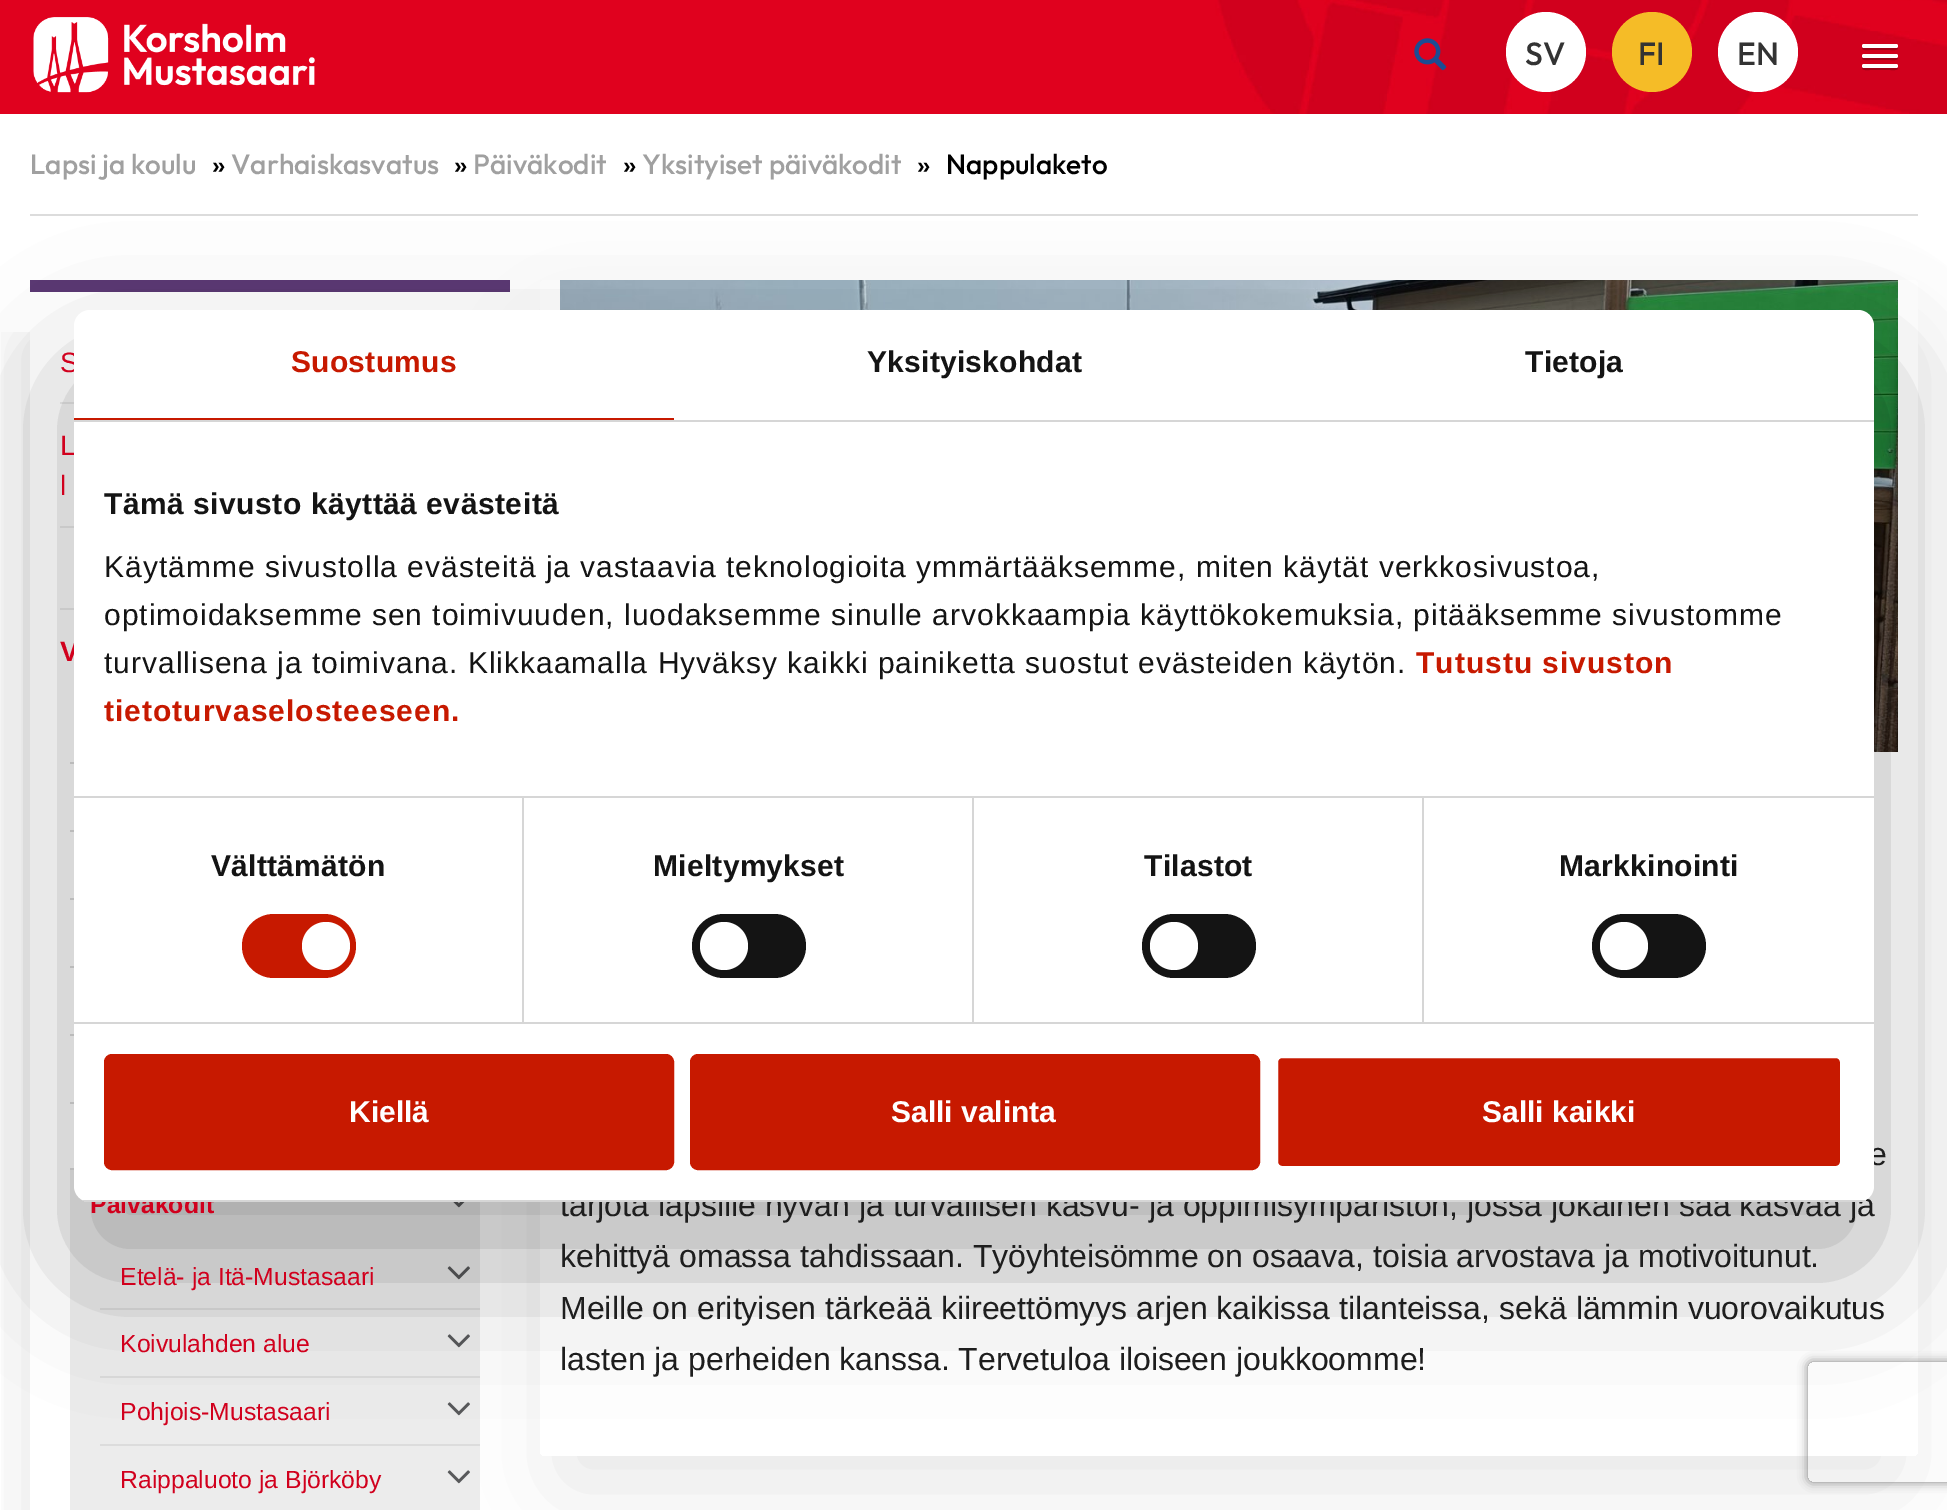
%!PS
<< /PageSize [1947 1510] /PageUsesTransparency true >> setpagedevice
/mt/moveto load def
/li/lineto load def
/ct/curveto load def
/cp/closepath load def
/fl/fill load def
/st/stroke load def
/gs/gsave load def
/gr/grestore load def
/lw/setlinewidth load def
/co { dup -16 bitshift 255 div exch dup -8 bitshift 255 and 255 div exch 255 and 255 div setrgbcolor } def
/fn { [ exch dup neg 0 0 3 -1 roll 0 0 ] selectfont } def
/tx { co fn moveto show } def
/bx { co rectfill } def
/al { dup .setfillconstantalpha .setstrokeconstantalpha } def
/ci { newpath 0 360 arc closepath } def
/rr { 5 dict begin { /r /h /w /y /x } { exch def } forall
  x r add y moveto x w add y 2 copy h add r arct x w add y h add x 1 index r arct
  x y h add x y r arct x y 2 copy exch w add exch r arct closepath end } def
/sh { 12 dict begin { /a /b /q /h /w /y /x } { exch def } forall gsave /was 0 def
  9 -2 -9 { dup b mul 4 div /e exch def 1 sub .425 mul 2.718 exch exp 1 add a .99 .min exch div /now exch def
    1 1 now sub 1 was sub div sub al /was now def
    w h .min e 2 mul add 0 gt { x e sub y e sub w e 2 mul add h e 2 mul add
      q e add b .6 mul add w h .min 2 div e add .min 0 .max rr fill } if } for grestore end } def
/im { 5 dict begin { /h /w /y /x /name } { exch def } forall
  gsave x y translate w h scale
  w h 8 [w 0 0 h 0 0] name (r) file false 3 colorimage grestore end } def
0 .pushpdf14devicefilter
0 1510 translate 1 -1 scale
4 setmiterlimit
0 0 1947 1510 16#FFFFFF bx
(media/1.raw) 0 0 1947 114 im
(media/2.raw) 33 17 282 76 im
(media/3.raw) 1414 38 33 33 im
1546 52 40 ci fl
16#F5BC27 co
1652 52 40 ci fl
16#FFFFFF co
1758 52 40 ci fl
16#9D0016 co
1862.5 47 mt 1860 51 1869 50 1869.5 50 ct 1890.5 50 li 1891 50 1900 51 1897.5 47 ct 1897.5 47.5 1896.5 48 1896 48 ct 1864 48 li 1863.5 48 1862.5 47.5 1862.5 47 ct cp fl
16#FFFFFF co
1862 44 36 4 2 rr fl
16#9D0016 co
1862.5 57 mt 1860 61 1869 60 1869.5 60 ct 1890.5 60 li 1891 60 1900 61 1897.5 57 ct 1897.5 57.5 1896.5 58 1896 58 ct 1864 58 li 1863.5 58 1862.5 57.5 1862.5 57 ct cp fl
16#FFFFFF co
1862 54 36 4 2 rr fl
16#9D0016 co
1862.5 67 mt 1860 71 1869 70 1869.5 70 ct 1890.5 70 li 1891 70 1900 71 1897.5 67 ct 1897.5 67.5 1896.5 68 1896 68 ct 1864 68 li 1863.5 68 1862.5 67.5 1862.5 67 ct cp fl
16#FFFFFF co
1862 64 36 4 2 rr fl
30 214 1888 2 16#DCDCDC bx
gs
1 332 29 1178 rectclip
16#000000 co
30 340 420 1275 0 35 .1 sh
gr
gs
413 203 mt 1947 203 li 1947 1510 li 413 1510 li cp 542 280 mt 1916 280 li 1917 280 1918 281 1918 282 ct 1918 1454 li 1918 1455 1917 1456 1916 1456 ct 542 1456 li 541 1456 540 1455 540 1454 ct 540 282 li 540 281 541 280 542 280 ct cp eoclip newpath
16#000000 co
564 354 1330 1128 0 50 .1 sh
gr
30 280 480 12 16#5B3873 bx
60 402 14 2 16#ECECEC bx
60 526 14 2 16#ECECEC bx
60 608 14 2 16#ECECEC bx
70 762 4 2 16#DCDCDC bx
70 830 4 2 16#DCDCDC bx
70 898 4 2 16#DCDCDC bx
70 966 4 2 16#DCDCDC bx
70 1034 4 2 16#DCDCDC bx
70 1102 4 2 16#DCDCDC bx
70 1168 4 2 16#DCDCDC bx
70 1170 410 340 16#ECECEC bx
(media/4.raw) 453 1202 12 6 im
100 1308 380 2 16#DCDCDC bx
(media/5.raw) 447 1266 23 14 im
100 1376 380 2 16#DCDCDC bx
(media/5.raw) 447 1334 23 14 im
100 1444 380 2 16#DCDCDC bx
(media/5.raw) 447 1402 23 14 im
(media/5.raw) 447 1470 23 14 im
(media/6.raw) 560 280 1338 472 im
16#000000 co
74 374 1800 892 16 68 .3 sh
gs
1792 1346 mt 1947 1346 li 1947 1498 li 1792 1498 li cp 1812 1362 mt 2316 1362 li 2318 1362 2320 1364 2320 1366 ct 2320 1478 li 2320 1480 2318 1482 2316 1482 ct 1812 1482 li 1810 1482 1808 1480 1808 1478 ct 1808 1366 li 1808 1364 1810 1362 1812 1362 ct cp eoclip newpath
16#808080 co
1808 1362 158 120 4 5 1 sh
gr
(SV) 1525 65 /Outfit-Thin 32 16#333333 tx
(FI) 1638 65 /Outfit-Thin 32 16#333333 tx
(EN) 1737 65 /Outfit-Thin 32 16#333333 tx
(Lapsi ja koulu) 30 174 /Outfit-Thin 28 16#A0A0A0 tx
(») 212 174 /Outfit-Thin 28 16#000000 tx
(Varhaiskasvatus) 231 174 /Outfit-Thin 28 16#A0A0A0 tx
(») 454 174 /Outfit-Thin 28 16#000000 tx
(Päiväkodit) 473 174 /Outfit-Thin 28 16#A0A0A0 tx
(») 623 174 /Outfit-Thin 28 16#000000 tx
(Yksityiset päiväkodit) 642 174 /Outfit-Thin 28 16#A0A0A0 tx
(») 917 174 /Outfit-Thin 28 16#000000 tx
(Nappulaketo) 946 174 /Outfit-Thin 28 16#000000 tx
(S) 60 372 /LiberationSans-Regular 28 16#D1001D tx
(L) 60 455 /LiberationSans-Regular 28 16#D1001D tx
(l) 60 495 /LiberationSans-Regular 28 16#D1001D tx
(V) 60 661 /LiberationSans-Bold 28 16#D1001D tx
(Päiväkodit) 90 1213 /LiberationSans-Bold 24.75 16#D1001D tx
(Etelä- ja Itä-Mustasaari) 120 1285 /LiberationSans-Regular 24.75 16#D1001D tx
(Koivulahden alue) 120 1352 /LiberationSans-Regular 24.75 16#D1001D tx
(Pohjois-Mustasaari) 120 1420 /LiberationSans-Regular 24.75 16#D1001D tx
(Raippaluoto ja Björköby) 120 1488 /LiberationSans-Regular 24.75 16#D1001D tx
(e) 1869 1165 /LiberationSans-Regular 32 16#1E1E1E tx
(tarjota lapsille hyvän ja turvallisen kasvu- ja oppimisympäristön, jossa jokainen saa kasvaa ja) 560 1216 /LiberationSans-Regular 32 16#1E1E1E tx
16#FFFFFF co
74 310 1800 892 16 rr fl
16#C71900 co
1276 1056 566 112 6 rr gs fl gr
16#FFFFFF co
4 lw
st
(Salli kaikki) 1482 1122 /LiberationSans-Bold 30 16#FFFFFF tx
16#C71900 co
692 1056 566 112 6 rr gs fl gr
st
(Salli valinta) 891 1122 /LiberationSans-Bold 30 16#FFFFFF tx
16#C71900 co
106 1056 566 112 6 rr gs fl gr
st
(Kiellä) 349 1122 /LiberationSans-Bold 30 16#FFFFFF tx
gs
74 310 1800 892 16 rr clip newpath
74 1200 1800 2 16#D6D6D6 bx
gr
16#141414 co
1592 914 114 64 32 rr fl
16#FFFFFF co
1624 946 24 ci fl
16#141414 co
1142 914 114 64 32 rr fl
16#FFFFFF co
1174 946 24 ci fl
16#141414 co
692 914 114 64 32 rr fl
16#FFFFFF co
724 946 24 ci fl
16#C71900 co
242 914 114 64 32 rr fl
16#FFFFFF co
326 946 24 ci fl
16#C71900 co
104 721 mt 1 0 (tietoturvaselosteeseen.) ashow
1416 673 mt 1 0 (Tutustu sivuston) ashow
/LiberationSans-Regular 30 fn
16#141414 co
104 673 mt 1 0 (turvallisena ja toimivana. Klikkaamalla Hyväksy kaikki painiketta suostut evästeiden käytön.) ashow
104 625 mt 1 0 (optimoidaksemme sen toimivuuden, luodaksemme sinulle arvokkaampia käyttökokemuksia, pitääksemme sivustomme) ashow
104 577 mt 1 0 (Käytämme sivustolla evästeitä ja vastaavia teknologioita ymmärtääksemme, miten käytät verkkosivustoa,) ashow
/LiberationSans-Bold 30 fn
104 514 mt .5 0 (Tämä sivusto käyttää evästeitä) ashow
74 796 1800 2 16#D6D6D6 bx
16#141414 co
1525 372 mt .25 0 (Tietoja) ashow
867 372 mt .25 0 (Yksityiskohdat) ashow
16#C71900 co
291 372 mt .25 0 (Suostumus) ashow
74 418 600 2 16#C71900 bx
74 420 1800 2 16#D6D6D6 bx
16#141414 co
1559 876 mt .25 0 (Markkinointi) ashow
1144 876 mt .25 0 (Tilastot) ashow
1422 798 2 224 16#D6D6D6 bx
16#141414 co
653 876 mt .25 0 (Mieltymykset) ashow
972 798 2 224 16#D6D6D6 bx
16#141414 co
211 876 mt .25 0 (Välttämätön) ashow
522 798 2 224 16#D6D6D6 bx
74 1022 1800 2 16#D6D6D6 bx
(kehittyä omassa tahdissaan. Työyhteisömme on osaava, toisia arvostava ja motivoitunut.) 560 1267 /LiberationSans-Regular 32 16#1E1E1E tx
(Meille on erityisen tärkeää kiireettömyys arjen kaikissa tilanteissa, sekä lämmin vuorovaikutus) 560 1319 /LiberationSans-Regular 32 16#1E1E1E tx
(lasten ja perheiden kanssa. Tervetuloa iloiseen joukkoomme!) 560 1370 /LiberationSans-Regular 32 16#1E1E1E tx
.poppdf14devicefilter showpage
